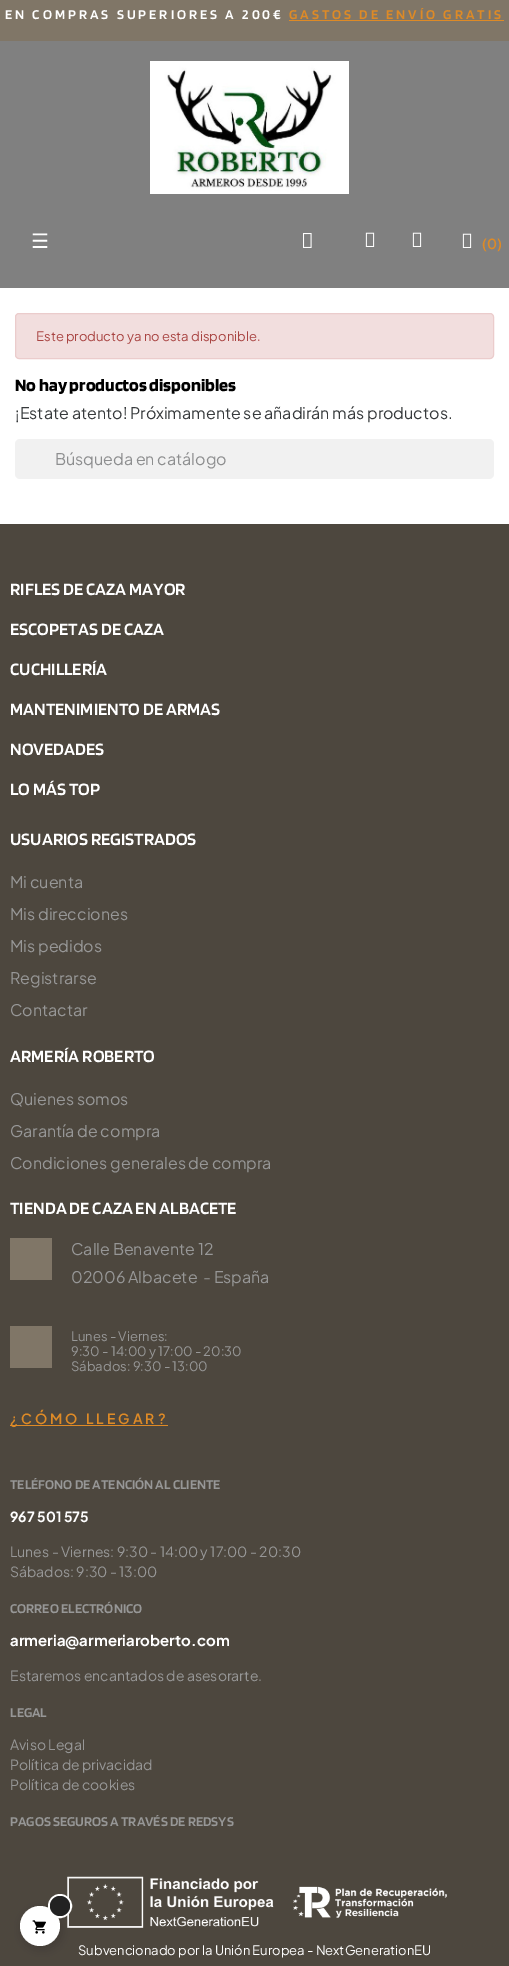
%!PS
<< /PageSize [509 1966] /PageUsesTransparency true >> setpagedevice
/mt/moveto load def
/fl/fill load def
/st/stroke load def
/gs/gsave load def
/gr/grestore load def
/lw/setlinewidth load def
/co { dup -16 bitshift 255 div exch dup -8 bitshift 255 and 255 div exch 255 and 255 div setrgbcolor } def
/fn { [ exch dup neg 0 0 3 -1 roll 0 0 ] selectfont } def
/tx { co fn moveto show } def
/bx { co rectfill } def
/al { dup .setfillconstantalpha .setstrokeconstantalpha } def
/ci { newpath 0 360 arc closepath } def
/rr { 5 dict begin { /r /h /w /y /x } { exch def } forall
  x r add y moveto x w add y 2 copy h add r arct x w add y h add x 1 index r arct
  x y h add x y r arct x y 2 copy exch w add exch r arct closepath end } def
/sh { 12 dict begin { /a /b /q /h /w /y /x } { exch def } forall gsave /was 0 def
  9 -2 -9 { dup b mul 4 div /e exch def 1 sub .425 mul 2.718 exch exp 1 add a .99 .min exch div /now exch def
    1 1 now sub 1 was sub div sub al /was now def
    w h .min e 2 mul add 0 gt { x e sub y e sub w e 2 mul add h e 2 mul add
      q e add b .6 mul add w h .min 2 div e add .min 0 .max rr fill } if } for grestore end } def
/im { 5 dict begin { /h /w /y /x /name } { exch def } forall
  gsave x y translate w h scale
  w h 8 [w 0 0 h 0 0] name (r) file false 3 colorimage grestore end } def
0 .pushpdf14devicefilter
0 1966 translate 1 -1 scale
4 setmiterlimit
0 0 509 1966 16#FFFFFF bx
0 0 509 41 16#807667 bx
289 20 215 1 16#DE8A26 bx
0 41 509 247 16#808080 bx
(media/1.raw) 150 61 199 133 im
(media/2.raw) 303 233 9 15 im
(media/3.raw) 365 232 10 15 im
(media/3.raw) 412 232 10 15 im
(media/3.raw) 462 233 10 15 im
16#F2DEDE co
15.5 313.5 478 45 3.5 rr gs fl gr
16#EBCCCC co
st
16#F1F1F1 co
15 439 479 40 5 rr fl
0 524 509 1442 16#4D473E bx
10 1238 42 42 16#807667 bx
10 1326 42 42 16#807667 bx
10 1425 158 1 16#DE8A26 bx
(media/4.raw) 67 1876 380 52 im
16#000000 co
22 1909 40 40 20 5 .15 sh
16#FFFFFF co
40 1926 20 ci fl
(media/5.raw) 32 1920 14 14 im
2 lw
60 1906 11 ci st
16#222222 co
60 1906 10 ci fl
/Blinker-SemiBold 14 fn
16#FFFFFF co
5 19 mt 3 0 (EN COMPRAS SUPERIORES A 200€) ashow
16#DE8A26 co
289 19 mt 3 0 (GASTOS DE ENVÍO GRATIS) ashow
(☰) 31 248 /DejaVuSans-Regular 20 16#FFFFFF tx
(\(0\)) 482 249 /PlusJakartaSans-SemiBold 14 16#DE8A26 tx
(Este producto ya no esta disponible.) 36 341 /PlusJakartaSans-Regular 13 16#A94442 tx
(No hay productos disponibles) 15 391 /Blinker-Bold 18 16#000000 tx
(¡Estate atento! Próximamente se añadirán más productos.) 15 419 /PlusJakartaSans-Regular 16 16#373A3C tx
(Búsqueda en catálogo) 55 465 /PlusJakartaSans-Regular 16 16#8D8E8F tx
(RIFLES DE CAZA MAYOR) 10 595 /Blinker-SemiBold 18 16#FFFFFF tx
(ESCOPETAS DE CAZA) 10 635 /Blinker-SemiBold 18 16#FFFFFF tx
(CUCHILLERÍA) 10 675 /Blinker-SemiBold 18 16#FFFFFF tx
(MANTENIMIENTO DE ARMAS) 10 715 /Blinker-SemiBold 18 16#FFFFFF tx
(NOVEDADES) 10 755 /Blinker-SemiBold 18 16#FFFFFF tx
(LO MÁS TOP) 10 795 /Blinker-SemiBold 18 16#FFFFFF tx
(USUARIOS REGISTRADOS) 10 845 /Blinker-SemiBold 18 16#FFFFFF tx
(Mi cuenta) 10 888 /PlusJakartaSans-Regular 16 16#979797 tx
(Mis direcciones) 10 920 /PlusJakartaSans-Regular 16 16#979797 tx
(Mis pedidos) 10 952 /PlusJakartaSans-Regular 16 16#979797 tx
(Registrarse) 10 984 /PlusJakartaSans-Regular 16 16#979797 tx
(Contactar) 10 1016 /PlusJakartaSans-Regular 16 16#979797 tx
(ARMERÍA ROBERTO) 10 1062 /Blinker-SemiBold 18 16#FFFFFF tx
(Quienes somos) 10 1105 /PlusJakartaSans-Regular 16 16#979797 tx
(Garantía de compra) 10 1137 /PlusJakartaSans-Regular 16 16#979797 tx
(Condiciones generales de compra) 10 1169 /PlusJakartaSans-Regular 16 16#979797 tx
(TIENDA DE CAZA EN ALBACETE) 10 1214 /Blinker-SemiBold 18 16#FFFFFF tx
(Calle Benavente 12) 71 1255 /PlusJakartaSans-Regular 16 16#979797 tx
(02006 Albacete  - España) 71 1283 /PlusJakartaSans-Regular 16 16#979797 tx
(Lunes - Viernes:) 71 1341 /PlusJakartaSans-Regular 13 16#979797 tx
(9:30 - 14:00 y 17:00 - 20:30) 71 1356 /PlusJakartaSans-Regular 13 16#979797 tx
(Sábados: 9:30 - 13:00) 71 1371 /PlusJakartaSans-Regular 13 16#979797 tx
/PlusJakartaSans-SemiBold 14 fn
16#DE8A26 co
10 1424 mt 3 0 (¿CÓMO LLEGAR?) ashow
(TELÉFONO DE ATENCIÓN AL CLIENTE) 10 1489 /Blinker-SemiBold 14 16#979797 tx
(967 501 575) 10 1522 /PlusJakartaSans-Bold 14 16#FFFFFF tx
(Lunes - Viernes: 9:30 - 14:00 y 17:00 - 20:30) 10 1557 /PlusJakartaSans-Regular 14 16#979797 tx
(Sábados: 9:30 - 13:00) 10 1577 /PlusJakartaSans-Regular 14 16#979797 tx
(CORREO ELECTRÓNICO) 10 1613 /Blinker-SemiBold 14 16#979797 tx
(armeria@armeriaroberto.com) 10 1646 /PlusJakartaSans-Bold 15 16#FFFFFF tx
(Estaremos encantados de asesorarte.) 10 1681 /PlusJakartaSans-Regular 14 16#979797 tx
(LEGAL) 10 1717 /Blinker-SemiBold 14 16#979797 tx
(Aviso Legal) 10 1750 /PlusJakartaSans-Regular 14 16#979797 tx
(Política de privacidad) 10 1770 /PlusJakartaSans-Regular 14 16#979797 tx
(Política de cookies) 10 1790 /PlusJakartaSans-Regular 14 16#979797 tx
(PAGOS SEGUROS A TRAVÉS DE REDSYS) 10 1826 /Blinker-SemiBold 14 16#979797 tx
(Subvencionado por la Unión Europea - NextGenerationEU) 78 1955 /PlusJakartaSans-Regular 13 16#FFFFFF tx
.poppdf14devicefilter showpage
